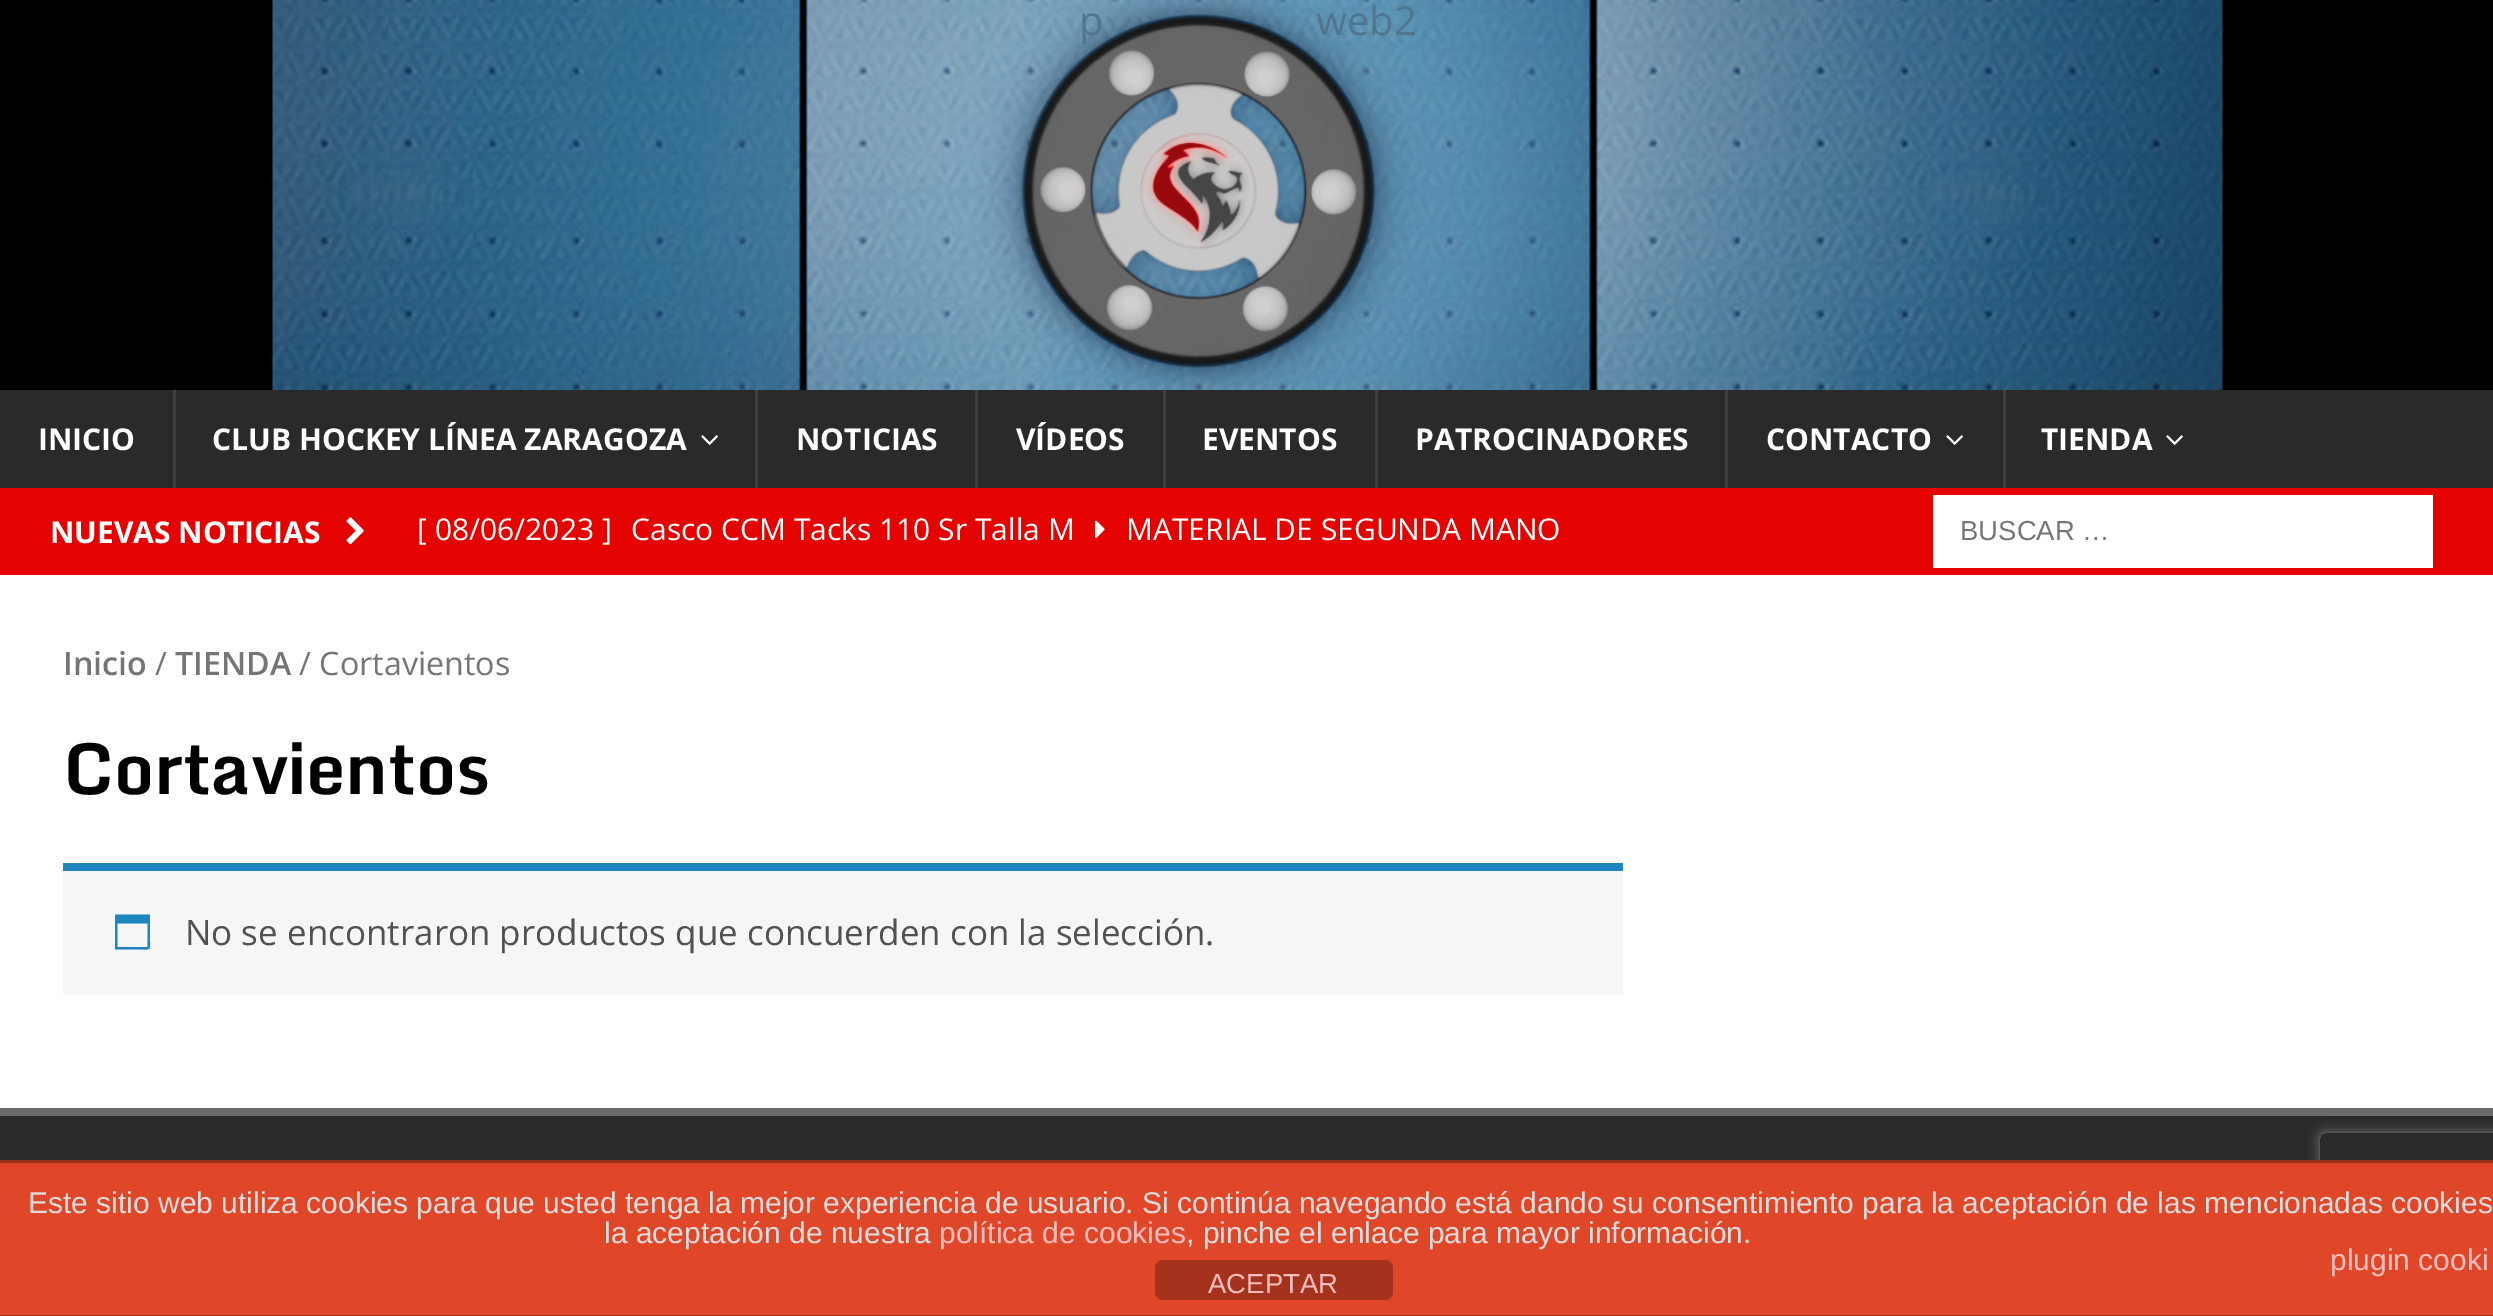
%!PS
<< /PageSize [2493 1316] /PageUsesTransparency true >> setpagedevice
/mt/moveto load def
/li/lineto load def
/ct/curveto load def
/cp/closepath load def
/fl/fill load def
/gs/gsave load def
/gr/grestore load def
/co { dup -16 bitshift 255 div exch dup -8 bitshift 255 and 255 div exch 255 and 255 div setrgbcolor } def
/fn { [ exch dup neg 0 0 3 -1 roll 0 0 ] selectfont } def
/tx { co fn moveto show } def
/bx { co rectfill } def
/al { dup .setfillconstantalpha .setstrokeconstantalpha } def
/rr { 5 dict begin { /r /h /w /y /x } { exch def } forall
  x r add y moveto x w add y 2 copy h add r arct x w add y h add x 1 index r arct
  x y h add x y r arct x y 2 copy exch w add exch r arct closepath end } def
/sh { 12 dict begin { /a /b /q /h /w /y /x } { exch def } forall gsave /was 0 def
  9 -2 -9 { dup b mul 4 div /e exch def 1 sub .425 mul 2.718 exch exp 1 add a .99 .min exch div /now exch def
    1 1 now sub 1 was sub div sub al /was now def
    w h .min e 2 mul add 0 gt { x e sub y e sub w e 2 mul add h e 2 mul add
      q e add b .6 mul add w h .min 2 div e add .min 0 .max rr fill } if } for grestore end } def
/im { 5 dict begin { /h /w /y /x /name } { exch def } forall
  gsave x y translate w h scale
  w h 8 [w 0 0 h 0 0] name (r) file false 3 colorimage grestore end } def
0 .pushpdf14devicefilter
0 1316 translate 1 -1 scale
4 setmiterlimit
0 0 2493 1316 16#2A2A2A bx
0 0 2493 390 16#000000 bx
(media/1.raw) 272 0 1951 390 im
173 390 3 98 16#3F3F3F bx
(media/2.raw) 701 435 17 10 im
755 390 3 98 16#3F3F3F bx
975 390 3 98 16#3F3F3F bx
1163 390 3 98 16#3F3F3F bx
1375 390 3 98 16#3F3F3F bx
1725 390 3 98 16#3F3F3F bx
(media/2.raw) 1946 435 17 10 im
2003 390 3 98 16#3F3F3F bx
(media/2.raw) 2166 435 17 10 im
0 488 2493 87 16#E50300 bx
(media/3.raw) 346 517 18 28 im
(media/4.raw) 1095 520 10 18 im
1933 495 500 73 16#FFFFFF bx
0 575 2493 533 16#FFFFFF bx
63 871 1560 124 16#F7F6F7 bx
63 863 1560 8 16#1E85BE bx
147.5 923.5 mt 117.5 923.5 li 117.5 947 li 147.5 947 li cp 150 914.5 mt 150 941.5 li 150 950 150.5 949.5 142 949.5 ct 115 949.5 li 115 914.5 li cp fl
0 1108 2493 8 16#6A6A6A bx
gs
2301 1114 mt 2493 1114 li 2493 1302 li 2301 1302 li cp 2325 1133 mt 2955 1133 li 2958 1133 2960 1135 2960 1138 ct 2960 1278 li 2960 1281 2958 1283 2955 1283 ct 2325 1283 li 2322 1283 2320 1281 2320 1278 ct 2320 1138 li 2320 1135 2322 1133 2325 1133 ct cp eoclip newpath
16#808080 co
2320 1133 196 150 5 6 1 sh
gr
0 1163 2493 152 16#E04729 bx
0 1160 2493 3 16#99301B bx
0 1315 2493 1 16#99301B bx
16#A5321C co
1155 1260 238 40 8 rr fl
(p) 1079 35 /OpenSans-Regular 40 16#50768D tx
(web2) 1316 35 /OpenSans-Regular 40 16#50768D tx
(INICIO) 38 450 /OpenSans-Bold 30 16#FFFFFF tx
(CLUB HOCKEY LÍNEA ZARAGOZA) 212 450 /OpenSans-Bold 30 16#FFFFFF tx
(NOTICIAS) 796 450 /OpenSans-Bold 30 16#FFFFFF tx
(VÍDEOS) 1016 450 /OpenSans-Bold 30 16#FFFFFF tx
(EVENTOS) 1202 450 /OpenSans-Bold 30 16#FFFFFF tx
(PATROCINADORES) 1415 450 /OpenSans-Bold 30 16#FFFFFF tx
(CONTACTO) 1766 450 /OpenSans-Bold 30 16#FFFFFF tx
(TIENDA) 2041 450 /OpenSans-Bold 30 16#FFFFFF tx
(NUEVAS NOTICIAS) 50 543 /OpenSans-Bold 30 16#FFFFFF tx
([ 08/06/2023 ]) 417 540 /OpenSans-Regular 30 16#FFFFFF tx
(Casco CCM Tacks 110 Sr Talla M) 631 540 /OpenSans-Regular 30 16#FFFFFF tx
(MATERIAL DE SEGUNDA MANO) 1126 540 /OpenSans-Regular 30 16#FFFFFF tx
(BUSCAR …) 1960 540 /LiberationSans-Regular 27.5 16#757575 tx
(Inicio) 63 675 /OpenSans-SemiBold 32.25 16#757575 tx
(/) 155 675 /OpenSans-Regular 32.25 16#757575 tx
(TIENDA) 175 675 /OpenSans-SemiBold 32.25 16#757575 tx
(/ Cortavientos) 299 675 /OpenSans-Regular 32.25 16#757575 tx
(Cortavientos) 63 794 /Monda-Bold 70 16#000000 tx
(No se encontraron productos que concuerden con la selección.) 185 945 /OpenSans-Regular 35 16#515151 tx
(Este sitio web utiliza cookies para que usted tenga la mejor experiencia de usuario. Si continúa navegando está dando su consentimiento para la aceptación de las mencionadas cookies) 28 1213 /LiberationSans-Regular 30 16#DDDDDD tx
(la aceptación de nuestra) 604 1243 /LiberationSans-Regular 30 16#DDDDDD tx
(política de cookies) 939 1243 /LiberationSans-Regular 30 16#FEBEBE tx
(, pinche el enlace para mayor información.) 1186 1243 /LiberationSans-Regular 30 16#DDDDDD tx
(plugin cooki) 2330 1270 /LiberationSans-Regular 30 16#FEBEBE tx
(ACEPTAR) 1208 1293 /LiberationSans-Regular 27.5 16#FEBEBE tx
.poppdf14devicefilter showpage
